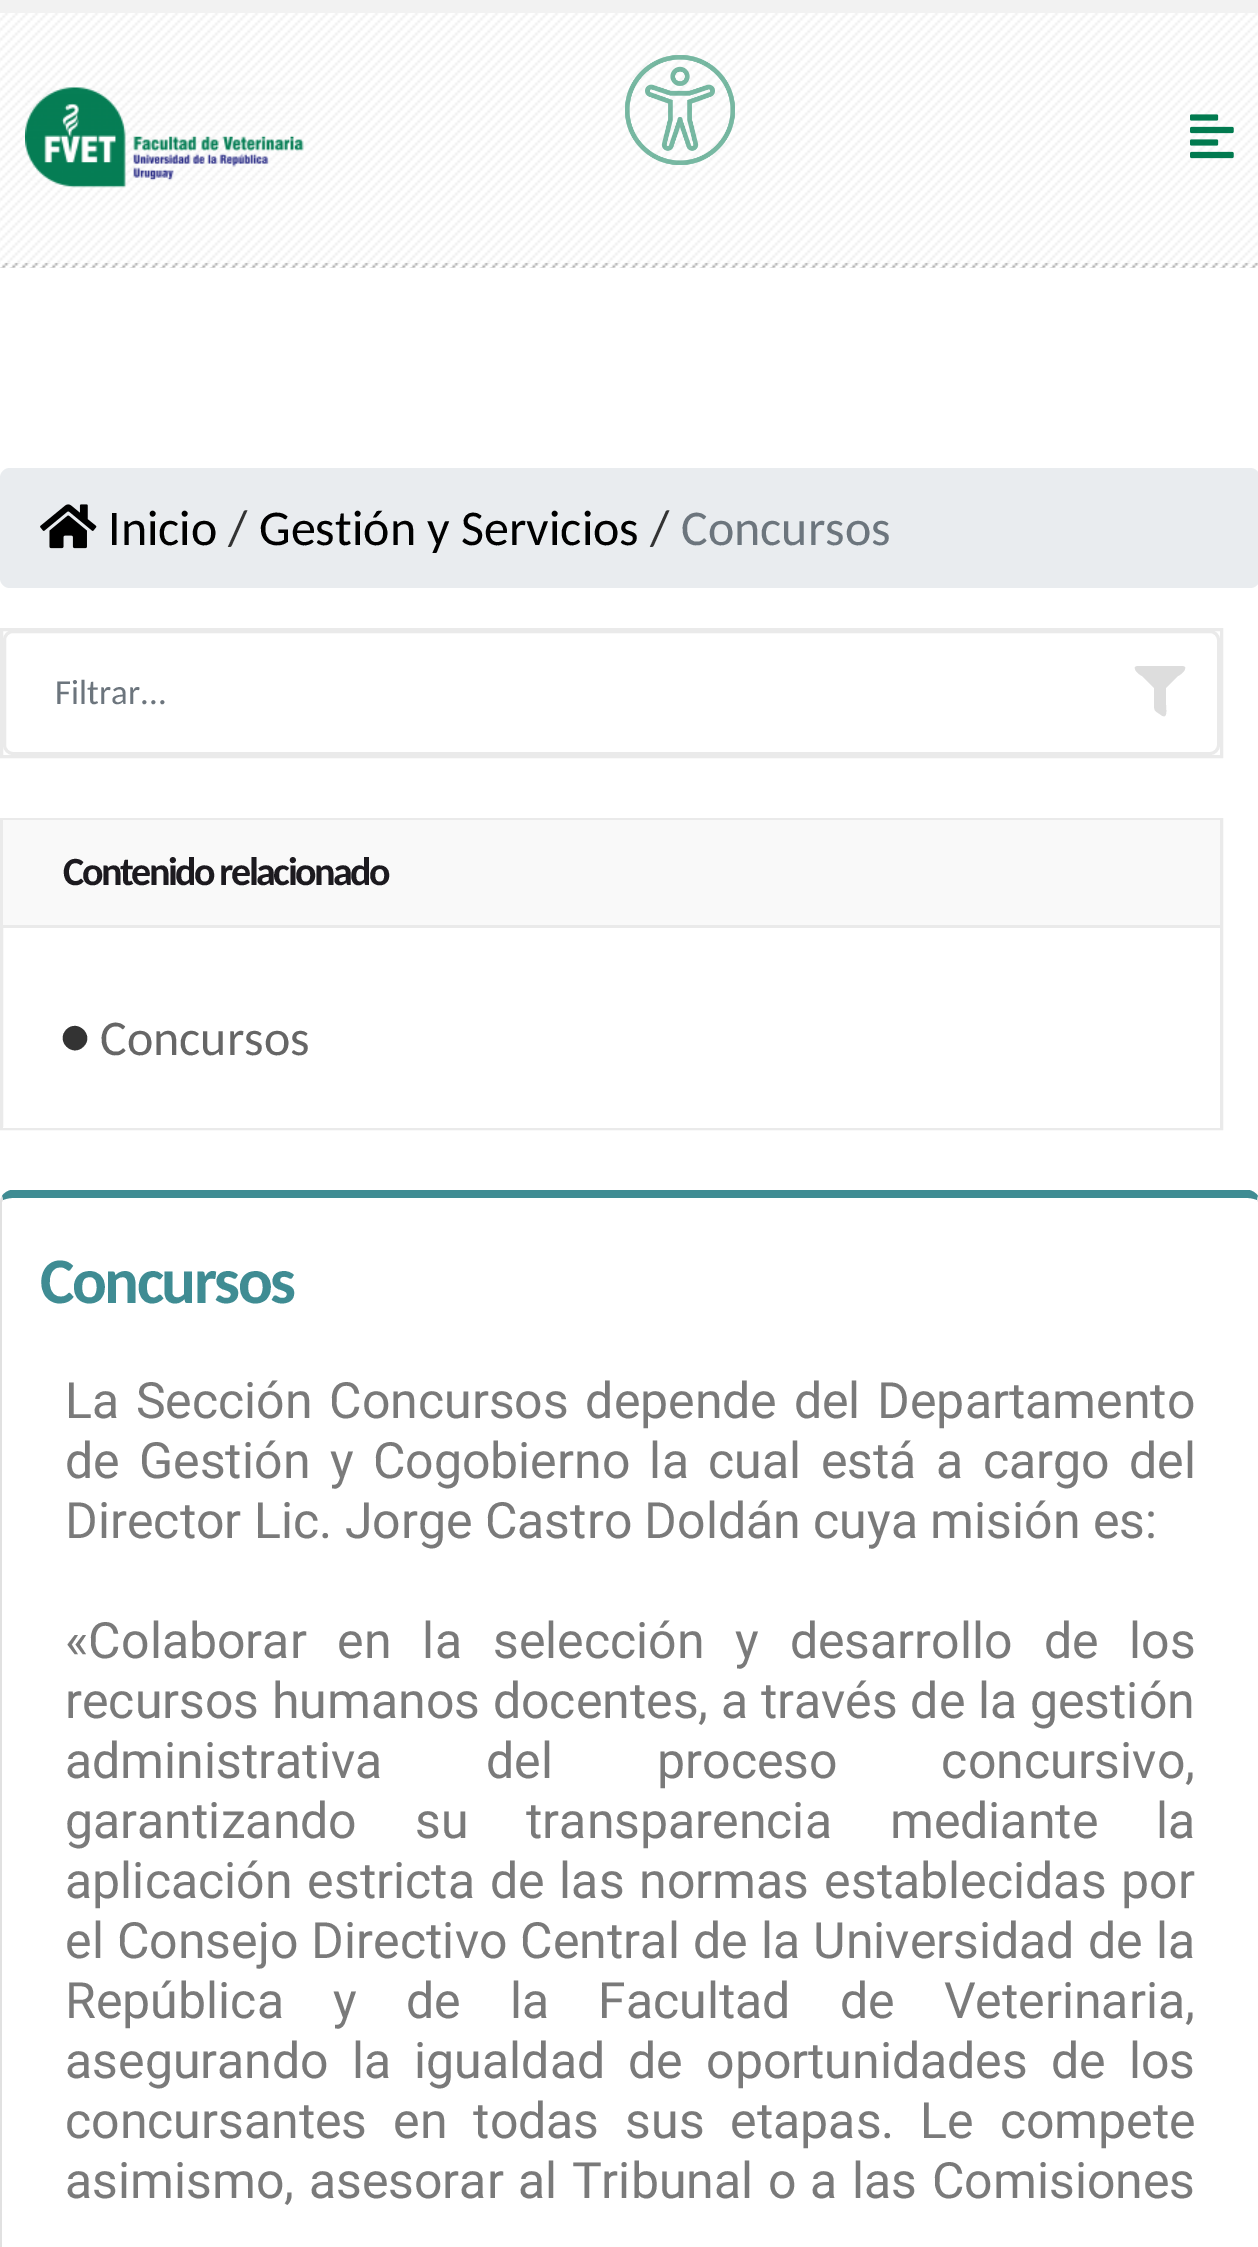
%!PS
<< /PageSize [1258 2247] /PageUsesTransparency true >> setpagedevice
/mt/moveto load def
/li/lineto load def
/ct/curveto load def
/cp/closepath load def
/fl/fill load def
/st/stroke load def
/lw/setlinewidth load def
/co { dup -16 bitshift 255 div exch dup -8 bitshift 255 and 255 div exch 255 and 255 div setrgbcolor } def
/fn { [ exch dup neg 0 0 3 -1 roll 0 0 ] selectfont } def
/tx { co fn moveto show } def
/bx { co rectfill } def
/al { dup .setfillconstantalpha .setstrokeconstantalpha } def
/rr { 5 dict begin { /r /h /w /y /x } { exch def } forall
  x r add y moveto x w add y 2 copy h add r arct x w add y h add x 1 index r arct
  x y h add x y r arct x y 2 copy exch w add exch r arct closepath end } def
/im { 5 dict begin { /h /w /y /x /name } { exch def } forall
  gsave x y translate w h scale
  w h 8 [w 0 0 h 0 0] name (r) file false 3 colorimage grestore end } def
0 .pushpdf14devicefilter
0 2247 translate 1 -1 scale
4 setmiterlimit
0 0 1258 2247 16#FFFFFF bx
(media/1.raw) 0 13 1258 255 im
0.8 al
0 13 1258 250 16#FFFFFF bx
1 al
0 0 1258 13 16#F2F2F2 bx
(media/2.raw) 25 87 279 101 im
(media/3.raw) 1190 114 44 45 im
(media/4.raw) 625 55 110 110 im
16#E9ECEF co
0 468 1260 120 10 rr fl
(media/5.raw) 40 504 57 45 im
16#EAEAEA co
3 lw
1.5 629.5 1220 127 rectstroke
4.5 631.5 1214 122 8.5 rr st
16#DDDDDD co
1183 666 mt 1185 667 li 1186 671 1180 675 1178 676 ct 1166 688 li 1166 705 li 1166 709 1168 720 1161 715 ct 1156 711 1154 712 1154 705 ct 1154 688 li 1142 676 li 1140 675 1134 671 1135 667 ct 1137 666 li cp fl
16#EAEAEA co
1.5 819.5 1220 309 rectstroke
3 820 1217 105 16#F9F9F9 bx
3 1127 1217 1 16#FFFFFF bx
3 925 1217 3 16#EAEAEA bx
16#333333 co
66.5 1029.5 mt 77.5 1018.5 95 1035.5 83.5 1046.5 ct 72.5 1058 55 1041 66.5 1029.5 ct cp fl
16#3F8C93 co
12 1190 mt 8 1190 4 1193 2 1196 ct 3 1200 li 5 1199 9 1198 12 1198 ct 1248 1198 li 1251 1198 1255 1199 1257 1200 ct 1258 1196 li 1256 1193 1252 1190 1248 1190 ct cp fl
16#E1E1E1 co
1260 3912 mt 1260 1202 li 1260 1200 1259 1198 1258 1196 ct 1257 1200 li 1258 1202 li 1258 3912 li 1258 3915 1257 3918 1255 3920 ct 1256 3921 li 1258 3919 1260 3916 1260 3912 ct cp fl
0 1202 mt 0 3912 li 0 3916 2 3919 4 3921 ct 5 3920 li 3 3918 2 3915 2 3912 ct 2 1202 li 3 1200 li 2 1196 li 1 1198 0 1200 0 1202 ct cp fl
(Inicio) 108 545 /Carlito-Regular 50 16#000000 tx
(/) 228 545 /Carlito-Regular 50 16#333333 tx
(Gestión y Servicios) 259 545 /Carlito-Regular 50 16#000000 tx
(/) 650 545 /Carlito-Regular 50 16#333333 tx
(Concursos) 681 545 /Carlito-Regular 50 16#6C757D tx
(Filtrar...) 55 704 /Carlito-Regular 35 16#6C757D tx
/Carlito-Bold 40 fn
16#1C1A1F co
63 885 mt -2.5 0 (Contenido relacionado) ashow
(Concursos) 100 1055 /Carlito-Regular 50 16#666666 tx
/Carlito-Bold 65 fn
16#3F8C93 co
40 1303 mt -2.5 0 (Concursos) ashow
/Roboto-Regular 50 fn
16#7A7A7A co
65 1418 mt 4.25 0 32 (La Sección Concursos depende del Departamento) widthshow
65 1478 mt 7 0 32 (de Gestión y Cogobierno la cual está a cargo del) widthshow
(Director Lic. Jorge Castro Doldán cuya misión es:) 65 1538 /Roboto-Regular 50 16#7A7A7A tx
65 1658 mt 18.5 0 32 («Colaborar en la selección y desarrollo de los) widthshow
65 1718 mt .25 0 32 (recursos humanos docentes, a través de la gestión) widthshow
65 1778 mt 91.5 0 32 (administrativa del proceso concursivo,) widthshow
65 1838 mt 45.5 0 32 (garantizando su transparencia mediante la) widthshow
65 1898 mt 2.5 0 32 (aplicación estricta de las normas establecidas por) widthshow
65 1958 mt .75 0 32 (el Consejo Directivo Central de la Universidad de la) widthshow
65 2018 mt 36.75 0 32 (República y de la Facultad de Veterinaria,) widthshow
65 2078 mt 10.75 0 32 (asegurando la igualdad de oportunidades de los) widthshow
65 2138 mt 13.5 0 32 (concursantes en todas sus etapas. Le compete) widthshow
65 2198 mt 2 0 32 (asimismo, asesorar al Tribunal o a las Comisiones) widthshow
.poppdf14devicefilter showpage
